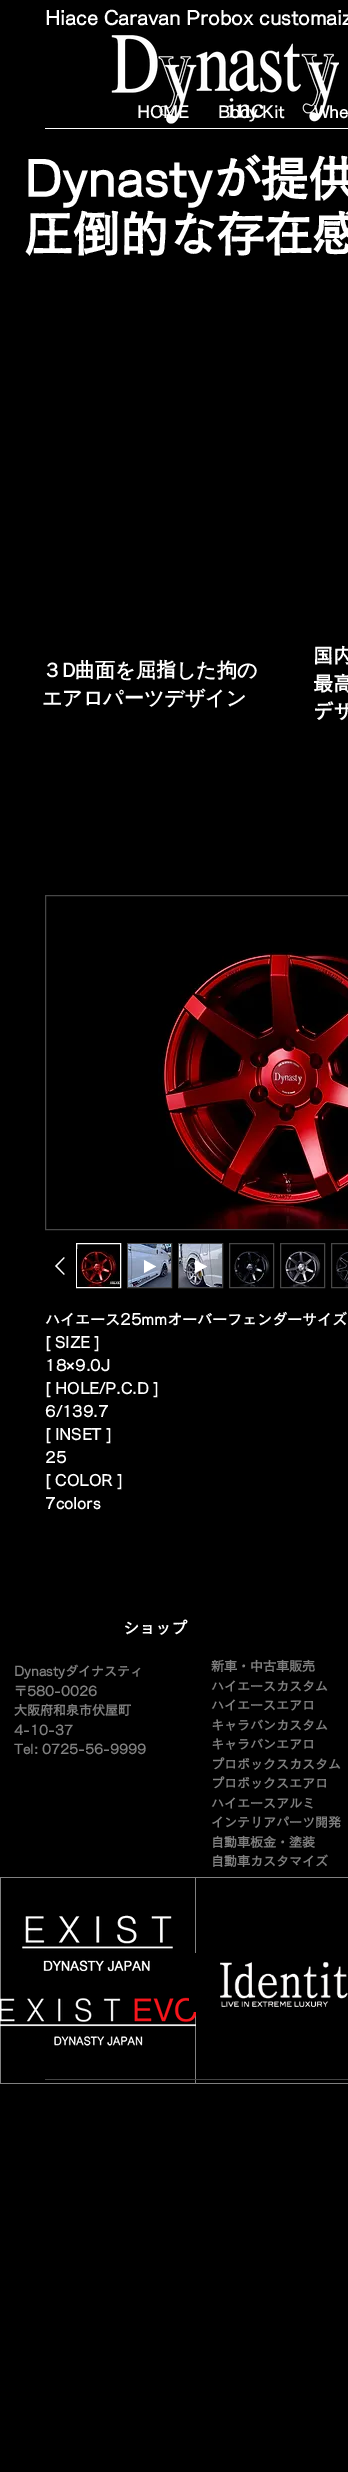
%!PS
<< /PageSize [348 2472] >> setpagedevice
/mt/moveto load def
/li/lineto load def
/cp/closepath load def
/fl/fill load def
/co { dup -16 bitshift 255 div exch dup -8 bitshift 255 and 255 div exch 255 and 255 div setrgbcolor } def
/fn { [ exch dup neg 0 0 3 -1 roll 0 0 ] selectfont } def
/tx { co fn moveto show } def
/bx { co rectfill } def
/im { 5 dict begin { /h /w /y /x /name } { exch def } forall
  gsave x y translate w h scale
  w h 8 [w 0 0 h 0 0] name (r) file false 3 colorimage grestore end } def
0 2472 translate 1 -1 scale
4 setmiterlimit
0 0 348 2472 16#000000 bx
(media/1.raw) 111 35 228 89 im
45 128 303 1 16#FFFFFF bx
16#474747 co
45.5 895.5 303 334 rectstroke
(media/2.raw) 158 952 190 277 im
16#FFFFFF co
64 1257 mt 64.5 1258 li 57 1266 li 64.5 1274 li 64 1275 li 55 1266 li cp eofill
76.5 1243.5 44 44 rectstroke
(media/3.raw) 77 1249 43 38 im
16#474747 co
127.5 1243.5 44 44 rectstroke
(media/4.raw) 128 1244 43 43 im
178.5 1243.5 44 44 rectstroke
(media/5.raw) 179 1244 43 43 im
16#FFFFFF co
144 1260 mt 144 1273 li 156 1266.5 li cp 195 1260 mt 195 1273 li 207 1266.5 li cp fl
16#474747 co
229.5 1243.5 44 44 rectstroke
(media/6.raw) 234 1251 36 36 im
280.5 1243.5 44 44 rectstroke
(media/7.raw) 285 1248 36 39 im
331.5 1243.5 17 44 rectstroke
(media/8.raw) 336 1252 12 35 im
0 1877 348 207 16#808080 bx
195 2079 1 1 16#4B4B4B bx
1 1878 194 205 16#000000 bx
45 2079 150 1 16#434343 bx
(media/9.raw) 22 1915 151 57 im
(media/10.raw) 0 1997 196 49 im
196 1878 152 205 16#000000 bx
196 2079 152 1 16#434343 bx
(media/11.raw) 189 1953 159 59 im
(Hiace Caravan Probox customaiz) 45 25 /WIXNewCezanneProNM-Bold 19 16#FFFFFF tx
(HOME) 137 118 /WIXNewCezanneProNM-Bold 16 16#FFFFFF tx
(Body Kit) 218 118 /WIXNewCezanneProNM-Bold 16 16#FFFFFF tx
(Whe) 314 118 /WIXNewCezanneProNM-Bold 16 16#FFFFFF tx
(Dynastyが提供) 24 197 /WIXNewCezanneProNM-Bold 48 16#FFFFFF tx
(圧倒的な存在感) 24 252 /WIXNewCezanneProNM-Bold 48 16#FFFFFF tx
(３D曲面を屈) 42 677 /WenQuanYiZenHei-Bold 20 16#FFFFFF tx
(指) 156 677 /WIXNewCezanneProNM-Bold 20 16#FFFFFF tx
(した拘の) 176 677 /WenQuanYiZenHei-Bold 20 16#FFFFFF tx
(エアロパーツデザイン) 42 705 /WenQuanYiZenHei-Bold 20 16#FFFFFF tx
(国内) 313 663 /WIXNewCezanneProNM-Bold 20 16#FFFFFF tx
(最高) 313 691 /WIXNewCezanneProNM-Bold 20 16#FFFFFF tx
(デザ) 313 719 /WIXNewCezanneProNM-Bold 20 16#FFFFFF tx
(ハイエース25mmオーバーフェンダーサイズ) 45 1325 /WIXNewCezanneProNM-Bold 15 16#FFFFFF tx
([ SIZE ]) 45 1348 /WIXNewCezanneProNM-Bold 15 16#FFFFFF tx
(18) 45 1371 /WIXNewCezanneProNM-Bold 15 16#FFFFFF tx
(×) 66 1371 /LiberationSans-Bold 15 16#FFFFFF tx
(9.0J) 75 1371 /WIXNewCezanneProNM-Bold 15 16#FFFFFF tx
([ HOLE/P.C.D ]) 45 1394 /WIXNewCezanneProNM-Bold 15 16#FFFFFF tx
(6/139.7) 45 1417 /WIXNewCezanneProNM-Bold 15 16#FFFFFF tx
([ INSET ]) 45 1440 /WIXNewCezanneProNM-Bold 15 16#FFFFFF tx
(25) 45 1463 /WIXNewCezanneProNM-Bold 15 16#FFFFFF tx
([ COLOR ]) 45 1486 /WIXNewCezanneProNM-Bold 15 16#FFFFFF tx
(7colors) 45 1509 /WIXNewCezanneProNM-Bold 15 16#FFFFFF tx
(ショップ) 123 1634 /WIXNewCezanneProNM-Bold 16 16#FFFFFF tx
(Dynastyダイナスティ) 14 1676 /WIXNewCezanneProNM-Bold 13 16#808080 tx
(〒580-0026) 14 1696 /WIXNewCezanneProNM-Bold 13 16#808080 tx
(大阪府和泉市伏屋町) 14 1715 /WIXNewCezanneProNM-Bold 13 16#808080 tx
(4-10-37) 14 1735 /WIXNewCezanneProNM-Bold 13 16#808080 tx
(Tel: 0725-56-9999) 14 1754 /WIXNewCezanneProNM-Bold 13 16#808080 tx
(新車・中古車販売) 211 1671 /WIXNewCezanneProNM-Bold 13 16#808080 tx
(ハイエースカスタム) 211 1691 /WIXNewCezanneProNM-Bold 13 16#808080 tx
(ハイエースエアロ) 211 1710 /WIXNewCezanneProNM-Bold 13 16#808080 tx
(キャラバンカスタム) 211 1730 /WIXNewCezanneProNM-Bold 13 16#808080 tx
(キャラバンエアロ) 211 1749 /WIXNewCezanneProNM-Bold 13 16#808080 tx
(プロボックスカスタム) 211 1769 /WIXNewCezanneProNM-Bold 13 16#808080 tx
(プロボックスエアロ) 211 1788 /WIXNewCezanneProNM-Bold 13 16#808080 tx
(ハイエースアルミ) 211 1808 /WIXNewCezanneProNM-Bold 13 16#808080 tx
(インテリアパーツ開発) 211 1827 /WIXNewCezanneProNM-Bold 13 16#808080 tx
(自動車板金・塗装) 211 1847 /WIXNewCezanneProNM-Bold 13 16#808080 tx
(自動車カスタマイズ) 211 1866 /WIXNewCezanneProNM-Bold 13 16#808080 tx
showpage
